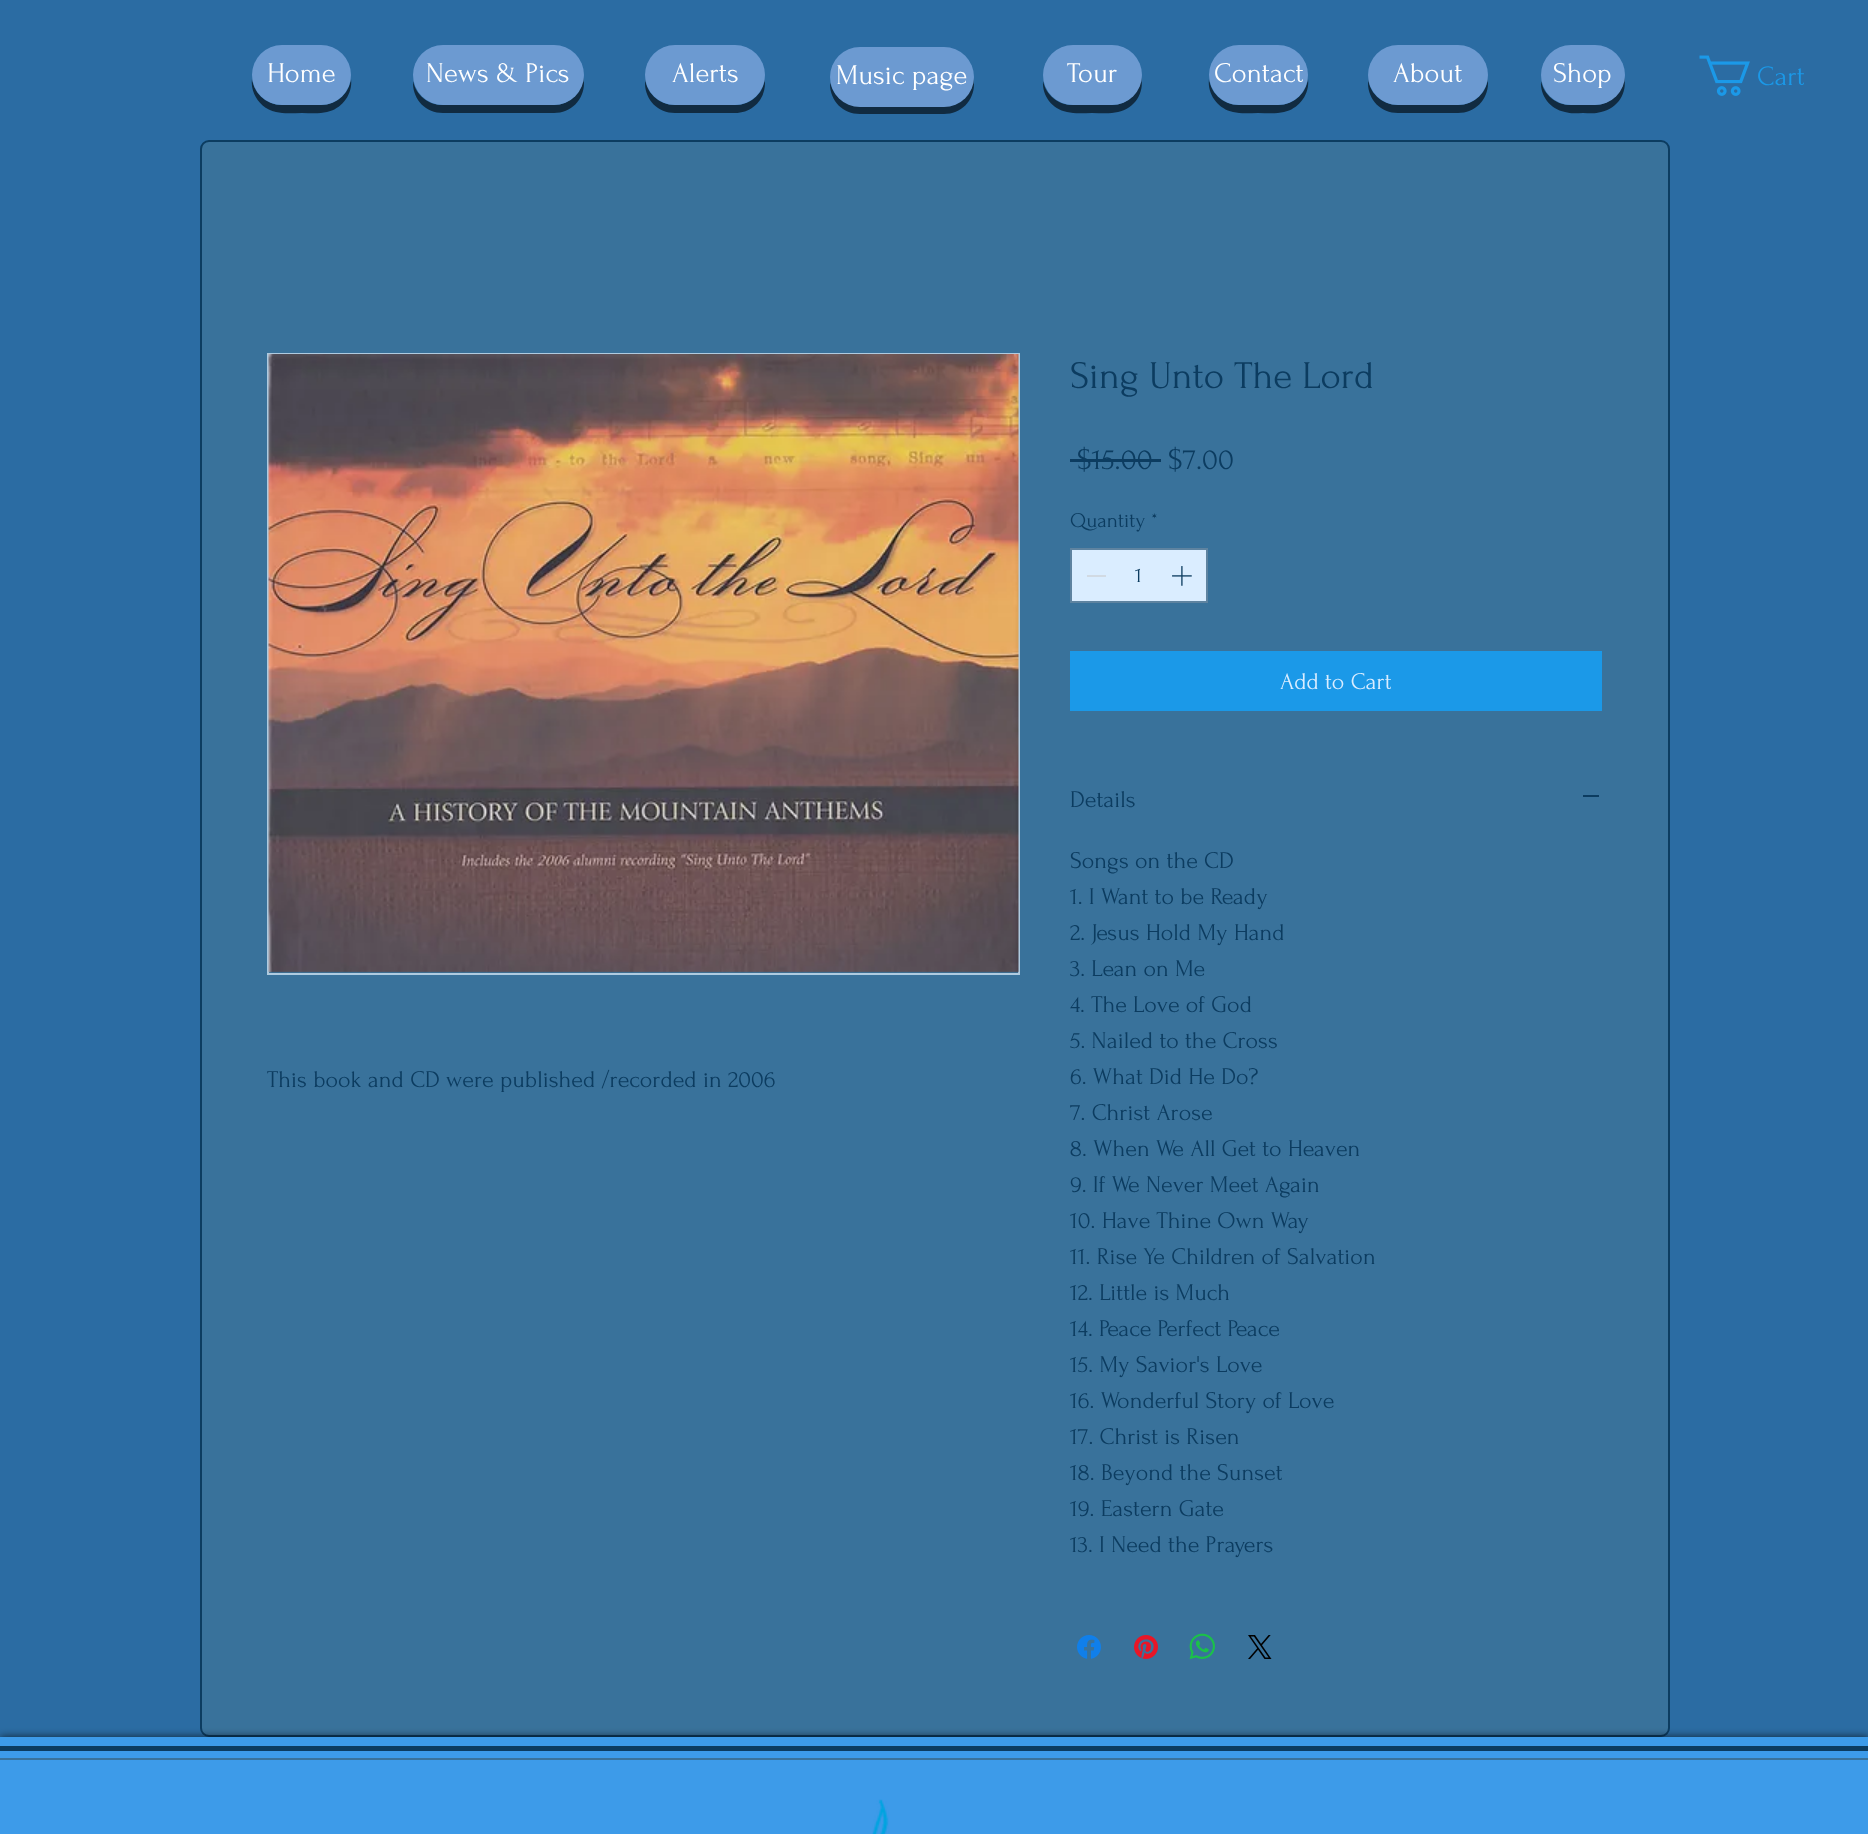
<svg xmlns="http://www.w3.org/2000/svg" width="1868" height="1834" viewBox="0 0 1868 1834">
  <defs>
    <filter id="blur1" x="-50%" y="-200%" width="200%" height="500%"><feGaussianBlur stdDeviation="4"/></filter>
  </defs>
  <rect width="100%" height="100%" fill="#2b6ca3"/>
  <path d="M252 79C250 94 261 109 276 112C284 114 293 113 302 113C310 113 319 114 327 112C342 109 353 94 351 79C349 94 336 105 321 105H282C267 105 254 94 252 79Z" fill="#112b41"/>
  <rect x="252" y="45" width="99" height="60" rx="30" fill="#6c9ad1"/>
  <text x="267" y="82" font-family="Forum" font-size="28.5" fill="#ffffff">Home</text>
  <path d="M413 81V83C413 100 426 113 443 113H554C571 113 584 100 584 83L583 77C582 93 569 105 554 105H442C428 105 416 95 413 81Z" fill="#112b41"/>
  <rect x="413" y="45" width="171" height="60" rx="30" fill="#6c9ad1"/>
  <text x="426" y="82" font-family="Forum" font-size="28.5" fill="#ffffff">News &amp; Pics</text>
  <path d="M645 79V83C645 100 658 113 675 113H735C752 113 765 100 765 83V79C763 94 750 105 735 105H675C660 105 647 94 645 79Z" fill="#112b41"/>
  <rect x="645" y="45" width="120" height="60" rx="30" fill="#6c9ad1"/>
  <text x="672" y="82" font-family="Forum" font-size="28.5" fill="#ffffff">Alerts</text>
  <path d="M830 82V84C830 101 843 114 860 114H944C961 114 974 101 974 84L973 78C973 94 959 106 944 106H860C845 106 833 96 830 82Z" fill="#112b41"/>
  <rect x="830" y="47" width="144" height="60" rx="30" fill="#6c9ad1"/>
  <text x="836" y="84" font-family="Forum" font-size="28.5" fill="#ffffff">Music page</text>
  <path d="M1043 81C1042 96 1052 109 1067 112C1075 114 1084 113 1092 113C1101 113 1110 114 1118 112C1134 109 1145 93 1141 77C1140 93 1127 105 1112 105H1072C1058 105 1046 95 1043 81Z" fill="#112b41"/>
  <rect x="1043" y="45" width="99" height="60" rx="30" fill="#6c9ad1"/>
  <text x="1067" y="82" font-family="Forum" font-size="28.5" fill="#ffffff">Tour</text>
  <path d="M1209 79C1207 94 1218 109 1233 112C1241 114 1250 113 1258 113C1267 113 1276 114 1284 112C1299 109 1310 94 1308 79C1306 94 1293 105 1278 105H1239C1224 105 1211 94 1209 79Z" fill="#112b41"/>
  <rect x="1209" y="45" width="99" height="60" rx="30" fill="#6c9ad1"/>
  <text x="1214" y="82" font-family="Forum" font-size="28.5" fill="#ffffff">Contact</text>
  <path d="M1368 79V83C1368 100 1381 113 1398 113H1458C1475 113 1488 100 1488 83V79C1486 94 1473 105 1458 105H1398C1383 105 1370 94 1368 79Z" fill="#112b41"/>
  <rect x="1368" y="45" width="120" height="60" rx="30" fill="#6c9ad1"/>
  <text x="1393" y="82" font-family="Forum" font-size="28.5" fill="#ffffff">About</text>
  <path d="M1541 81C1540 96 1550 109 1565 112C1571 114 1577 113 1583 113C1589 113 1595 114 1601 112C1617 109 1628 93 1624 77C1623 93 1610 105 1594 105H1570C1556 105 1544 95 1541 81Z" fill="#112b41"/>
  <rect x="1541" y="45" width="84" height="60" rx="30" fill="#6c9ad1"/>
  <text x="1553" y="82" font-family="Forum" font-size="28.5" fill="#ffffff">Shop</text>
  <image x="1699" y="55" width="51" height="41" href="img1.png"/>
  <text x="1757" y="85" font-family="Forum" font-size="28" fill="#1b99e8">Cart</text>
  <rect x="201" y="141" width="1468" height="1595" rx="8" fill="#39729b" stroke="#0c3c60" stroke-width="2"/>
  <rect x="268" y="354" width="751" height="620" fill="none" stroke="#afcbe0" stroke-width="2"/>
  <image x="268" y="354" width="751" height="619" href="img2.png"/>
  <text x="267" y="1087" font-family="Forum" font-size="24" fill="#0c3c60">This book and CD were published /recorded in 2006</text>
  <text x="1070" y="388" font-family="Forum" font-size="39" fill="#0c3c60">Sing Unto The Lord</text>
  <text x="1077" y="469" font-family="Forum" font-size="30" fill="#0c3c60">$15.00</text>
  <rect x="1070" y="459" width="91" height="3" fill="#0c3c60"/>
  <text x="1168" y="469" font-family="Forum" font-size="30" fill="#0c3c60">$7.00</text>
  <text x="1070" y="527" font-family="Forum" font-size="21" fill="#0c3c60">Quantity</text>
  <text x="1151" y="527" font-family="Forum" font-size="21" fill="#0c3c60">*</text>
  <rect x="1071" y="549" width="136" height="53" fill="#daedff" stroke="#5e83a0" stroke-width="2"/>
  <rect x="1087" y="575" width="19" height="2" fill="#d1dae3"/>
  <text x="1135" y="582" font-family="Forum" font-size="21" fill="#0c3c60">1</text>
  <image x="1172" y="566" width="20" height="20" href="img3.png"/>
  <rect x="1070" y="651" width="532" height="60" fill="#1b99e8"/>
  <text x="1280" y="689" font-family="Forum" font-size="24" fill="#daedff">Add to Cart</text>
  <text x="1070" y="807" font-family="Forum" font-size="24" fill="#0c3c60">Details</text>
  <rect x="1583" y="795" width="16" height="2" fill="#0c3c60"/>
  <text x="1070" y="868" font-family="Forum" font-size="24" fill="#0c3c60">Songs on the CD</text>
  <text x="1070" y="904" font-family="Forum" font-size="24" fill="#0c3c60">1. I Want to be Ready</text>
  <text x="1070" y="940" font-family="Forum" font-size="24" fill="#0c3c60">2. Jesus Hold My Hand</text>
  <text x="1070" y="976" font-family="Forum" font-size="24" fill="#0c3c60">3. Lean on Me</text>
  <text x="1070" y="1012" font-family="Forum" font-size="24" fill="#0c3c60">4. The Love of God</text>
  <text x="1070" y="1048" font-family="Forum" font-size="24" fill="#0c3c60">5. Nailed to the Cross</text>
  <text x="1070" y="1084" font-family="Forum" font-size="24" fill="#0c3c60">6. What Did He Do?</text>
  <text x="1070" y="1120" font-family="Forum" font-size="24" fill="#0c3c60">7. Christ Arose</text>
  <text x="1070" y="1156" font-family="Forum" font-size="24" fill="#0c3c60">8. When We All Get to Heaven</text>
  <text x="1070" y="1192" font-family="Forum" font-size="24" fill="#0c3c60">9. If We Never Meet Again</text>
  <text x="1070" y="1228" font-family="Forum" font-size="24" fill="#0c3c60">10. Have Thine Own Way</text>
  <text x="1070" y="1264" font-family="Forum" font-size="24" fill="#0c3c60">11. Rise Ye Children of Salvation</text>
  <text x="1070" y="1300" font-family="Forum" font-size="24" fill="#0c3c60">12. Little is Much</text>
  <text x="1070" y="1336" font-family="Forum" font-size="24" fill="#0c3c60">14. Peace Perfect Peace</text>
  <text x="1070" y="1372" font-family="Forum" font-size="24" fill="#0c3c60">15. My Savior's Love</text>
  <text x="1070" y="1408" font-family="Forum" font-size="24" fill="#0c3c60">16. Wonderful Story of Love</text>
  <text x="1070" y="1444" font-family="Forum" font-size="24" fill="#0c3c60">17. Christ is Risen</text>
  <text x="1070" y="1480" font-family="Forum" font-size="24" fill="#0c3c60">18. Beyond the Sunset</text>
  <text x="1070" y="1516" font-family="Forum" font-size="24" fill="#0c3c60">19. Eastern Gate</text>
  <text x="1070" y="1552" font-family="Forum" font-size="24" fill="#0c3c60">13. I Need the Prayers</text>
  <image x="1077" y="1635" width="24" height="24" href="img4.png"/>
  <image x="1134" y="1635" width="24" height="24" href="img5.png"/>
  <image x="1189" y="1633" width="26" height="26" href="img6.png"/>
  <image x="1248" y="1635" width="24" height="24" href="img7.png"/>
  <rect x="0" y="1737" width="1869" height="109" fill="#000000" fill-opacity="0.7" filter="url(#blur1)"/>
  <rect x="0" y="1737" width="1868" height="97" fill="#3d9be9"/>
  <rect x="0" y="1746" width="1868" height="5" fill="#0c3c60"/>
  <rect x="0" y="1758" width="1868" height="2" fill="#39729b"/>
  <image x="872" y="1799" width="17" height="35" href="img8.png"/>
</svg>
